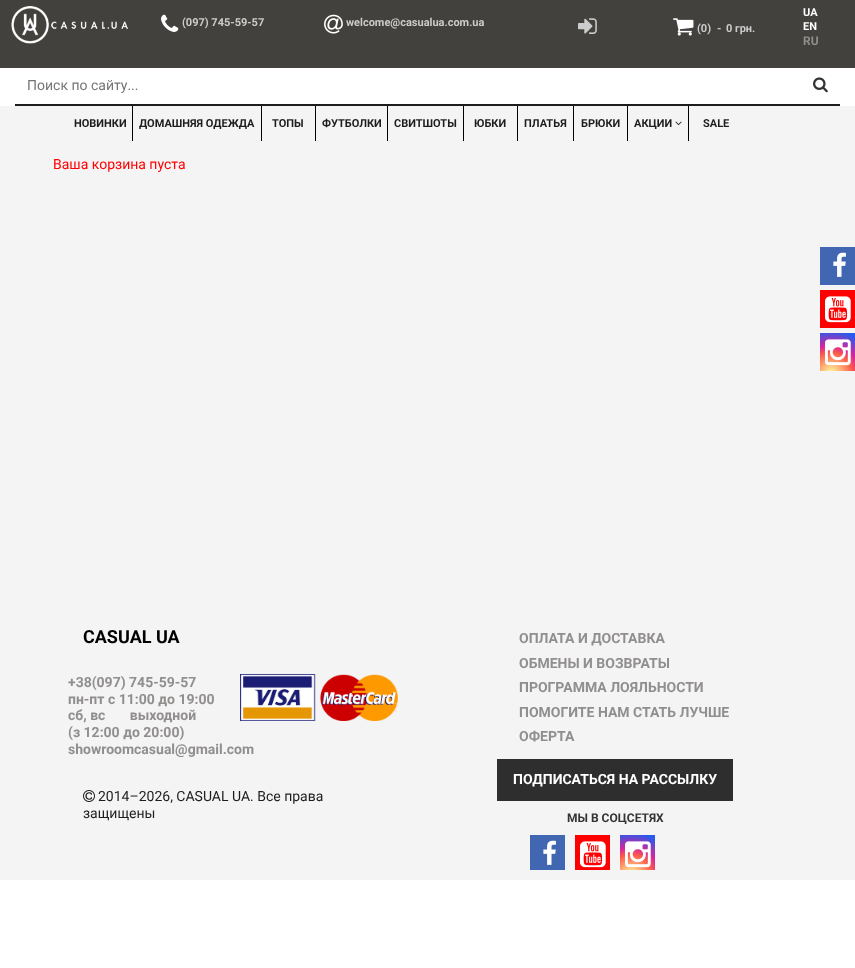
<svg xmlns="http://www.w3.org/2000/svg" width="855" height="968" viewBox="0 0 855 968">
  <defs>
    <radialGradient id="g1" gradientUnits="userSpaceOnUse" cx="831" cy="374" r="48"><stop offset="0" stop-color="#fdf497"/><stop offset="0.05" stop-color="#fdf497"/><stop offset="0.45" stop-color="#fd5949"/><stop offset="0.6" stop-color="#d6249f"/><stop offset="0.9" stop-color="#285aeb"/></radialGradient>
    <radialGradient id="g2" gradientUnits="userSpaceOnUse" cx="631" cy="876" r="48"><stop offset="0" stop-color="#fdf497"/><stop offset="0.05" stop-color="#fdf497"/><stop offset="0.45" stop-color="#fd5949"/><stop offset="0.6" stop-color="#d6249f"/><stop offset="0.9" stop-color="#285aeb"/></radialGradient>
  </defs>
  <rect width="100%" height="100%" fill="#ffffff"/>
  <rect x="0" y="0" width="855" height="68" fill="#42413e"/>
  <image x="11" y="6" width="117" height="38" href="img1.png"/>
  <image x="161" y="14" width="18" height="18" href="img2.png"/>
  <text x="182" y="26" font-family="Roboto" font-size="11" font-weight="bold" fill="#cccccc">(097) 745-59-57</text>
  <image x="324" y="14" width="19" height="20" href="img3.png"/>
  <text x="346" y="26" font-family="Roboto" font-size="11" font-weight="bold" fill="#cccccc">welcome@casualua.com.ua</text>
  <image x="578" y="18" width="19" height="16" href="img4.png"/>
  <image x="673" y="18" width="21" height="18" href="img5.png"/>
  <text x="697" y="32" font-family="Roboto" font-size="11" font-weight="bold" fill="#cccccc">(0)</text>
  <text x="717" y="32" font-family="Roboto" font-size="11" font-weight="bold" fill="#cccccc">-</text>
  <text x="726" y="32" font-family="Roboto" font-size="11" font-weight="bold" fill="#cccccc">0 грн.</text>
  <text x="803" y="16" font-family="Roboto" font-size="11" font-weight="bold" fill="#ffffff">UA</text>
  <text x="803" y="30" font-family="Roboto" font-size="11" font-weight="bold" fill="#ffffff">EN</text>
  <text x="803" y="45" font-family="Roboto" font-size="12" font-weight="bold" fill="#918e8e">RU</text>
  <rect x="15" y="104" width="825" height="2" fill="#1d1d1d"/>
  <text x="27" y="90" font-family="Roboto" font-size="14" fill="#757575">Поиск по сайту...</text>
  <image x="813" y="77" width="15" height="16" href="img6.png"/>
  <rect x="0" y="106" width="855" height="774" fill="#f4f4f4"/>
  <rect x="132" y="106" width="1" height="35" fill="#000000"/>
  <text x="74" y="127" font-family="Roboto" font-size="11" font-weight="bold" fill="#1d1d1d">НОВИНКИ</text>
  <rect x="261" y="106" width="1" height="35" fill="#000000"/>
  <text x="139" y="127" font-family="Roboto" font-size="11" font-weight="bold" fill="#1d1d1d">ДОМАШНЯЯ ОДЕЖДА</text>
  <rect x="315" y="106" width="1" height="35" fill="#000000"/>
  <text x="272" y="127" font-family="Roboto" font-size="11" font-weight="bold" fill="#1d1d1d">ТОПЫ</text>
  <rect x="387" y="106" width="1" height="35" fill="#000000"/>
  <text x="322" y="127" font-family="Roboto" font-size="11" font-weight="bold" fill="#1d1d1d">ФУТБОЛКИ</text>
  <rect x="463" y="106" width="1" height="35" fill="#000000"/>
  <text x="394" y="127" font-family="Roboto" font-size="11" font-weight="bold" fill="#1d1d1d">СВИТШОТЫ</text>
  <rect x="517" y="106" width="1" height="35" fill="#000000"/>
  <text x="474" y="127" font-family="Roboto" font-size="11" font-weight="bold" fill="#1d1d1d">ЮБКИ</text>
  <rect x="573" y="106" width="1" height="35" fill="#000000"/>
  <text x="524" y="127" font-family="Roboto" font-size="11" font-weight="bold" fill="#1d1d1d">ПЛАТЬЯ</text>
  <rect x="627" y="106" width="1" height="35" fill="#000000"/>
  <text x="581" y="127" font-family="Roboto" font-size="11" font-weight="bold" fill="#1d1d1d">БРЮКИ</text>
  <rect x="688" y="106" width="1" height="35" fill="#000000"/>
  <text x="634" y="127" font-family="Roboto" font-size="11" font-weight="bold" fill="#1d1d1d">АКЦИИ</text>
  <image x="675" y="121" width="7" height="5" href="img7.png"/>
  <text x="703" y="127" font-family="Roboto" font-size="11" font-weight="bold" fill="#1d1d1d">SALE</text>
  <text x="53" y="169" font-family="Roboto" font-size="14" fill="#ff0000">Ваша корзина пуста</text>
  <rect x="820" y="247" width="35" height="38" fill="#4267b2"/>
  <image x="833" y="252" width="13" height="25" href="img8.png"/>
  <rect x="820" y="290" width="35" height="38" fill="#ff0000"/>
  <image x="825" y="296" width="26" height="27" href="img9.png"/>
  <rect x="820" y="333" width="35" height="38" fill="url(#g1)"/>
  <image x="825" y="339" width="26" height="27" href="img10.png"/>
  <text x="83" y="643" font-family="Roboto" font-size="18" font-weight="bold" fill="#000000">CASUAL UA</text>
  <text x="68" y="687" font-family="Roboto" font-size="14" font-weight="bold" fill="#918e8e">+38(097) 745-59-57</text>
  <text x="68" y="704" font-family="Roboto" font-size="14" font-weight="bold" fill="#918e8e">пн-пт с 11:00 до 19:00</text>
  <text x="68" y="720" font-family="Roboto" font-size="14" font-weight="bold" fill="#918e8e" xml:space="preserve">сб, вс       выходной</text>
  <text x="68" y="737" font-family="Roboto" font-size="14" font-weight="bold" fill="#918e8e">(з 12:00 до 20:00)</text>
  <text x="68" y="754" font-family="Roboto" font-size="14" font-weight="bold" fill="#918e8e">showroomcasual@gmail.com</text>
  <image x="240" y="674" width="158" height="47" href="img11.png"/>
  <image x="83" y="790" width="12" height="12" href="img12.png"/>
  <text x="98" y="801" font-family="Roboto" font-size="14" fill="#1d1d1d">2014–2026, CASUAL UA. Все права</text>
  <text x="83" y="818" font-family="Roboto" font-size="14" fill="#1d1d1d">защищены</text>
  <text x="519" y="643" font-family="Roboto" font-size="14" font-weight="bold" fill="#918e8e">ОПЛАТА И ДОСТАВКА</text>
  <text x="519" y="668" font-family="Roboto" font-size="14" font-weight="bold" fill="#918e8e">ОБМЕНЫ И ВОЗВРАТЫ</text>
  <text x="519" y="692" font-family="Roboto" font-size="14" font-weight="bold" fill="#918e8e">ПРОГРАММА ЛОЯЛЬНОСТИ</text>
  <text x="519" y="717" font-family="Roboto" font-size="14" font-weight="bold" fill="#918e8e">ПОМОГИТЕ НАМ СТАТЬ ЛУЧШЕ</text>
  <text x="519" y="741" font-family="Roboto" font-size="14" font-weight="bold" fill="#918e8e">ОФЕРТА</text>
  <rect x="497" y="759" width="236" height="42" fill="#2f2e2e"/>
  <text x="513" y="784" font-family="Roboto" font-size="14" font-weight="bold" fill="#ffffff">ПОДПИСАТЬСЯ НА РАССЫЛКУ</text>
  <text x="567" y="822" font-family="Roboto" font-size="12" font-weight="bold" fill="#343434">МЫ В СОЦСЕТЯХ</text>
  <rect x="530" y="835" width="35" height="35" fill="#4267b2"/>
  <image x="543" y="840" width="13" height="25" href="img8.png"/>
  <rect x="575" y="835" width="35" height="35" fill="#ff0000"/>
  <image x="580" y="841" width="26" height="27" href="img9.png"/>
  <rect x="620" y="835" width="35" height="35" fill="url(#g2)"/>
  <image x="625" y="841" width="26" height="27" href="img13.png"/>
</svg>
